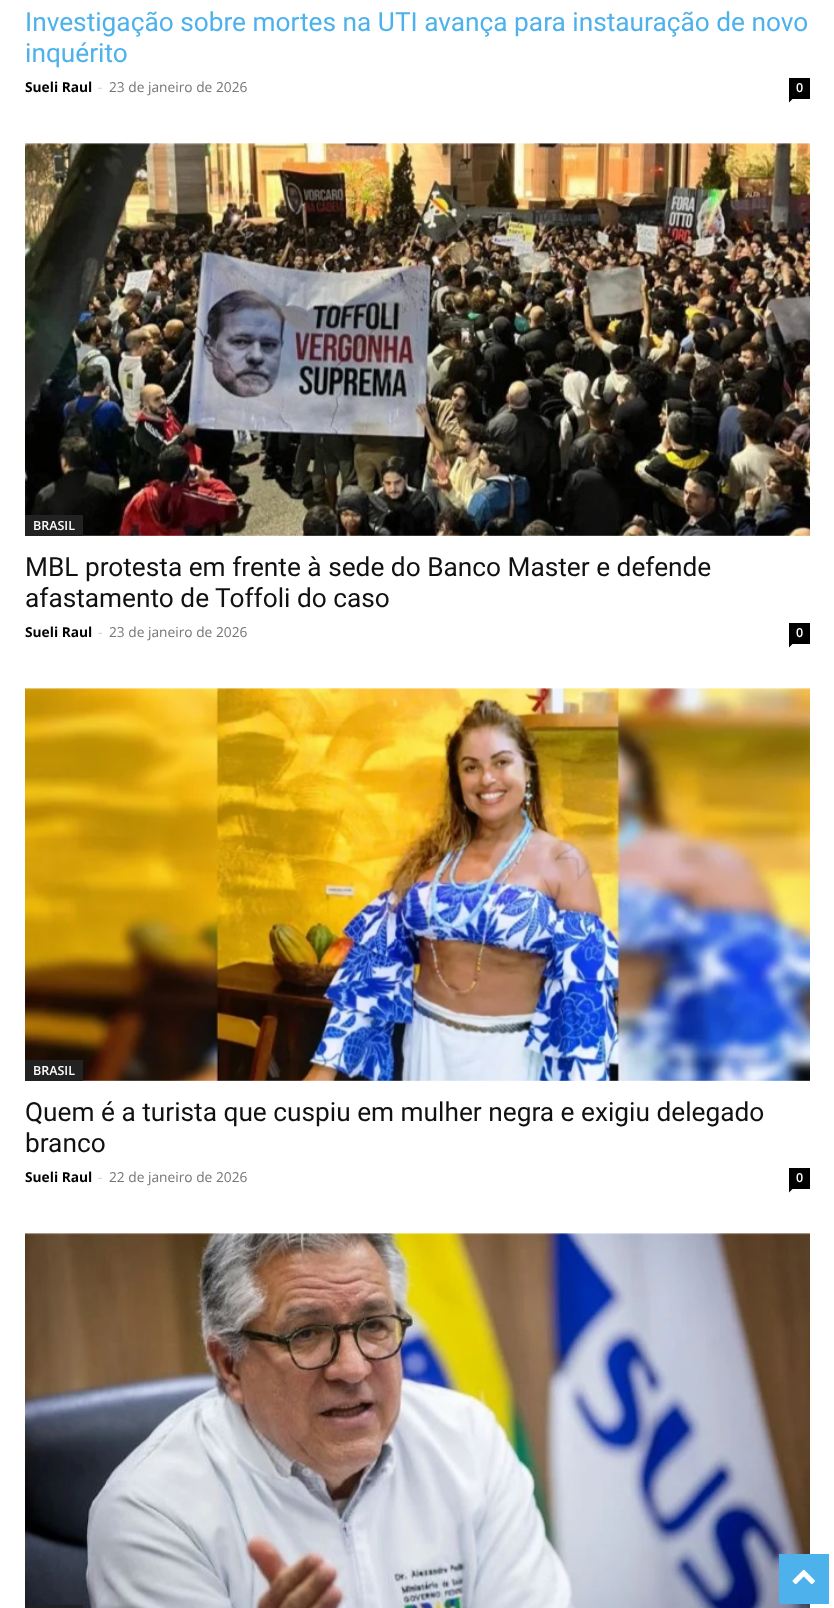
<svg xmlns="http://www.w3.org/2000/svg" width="834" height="1608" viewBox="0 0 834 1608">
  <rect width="100%" height="100%" fill="#ffffff"/>
  <text x="25" y="31" font-family="Roboto" font-size="26.25" fill="#4db2ec">Investigação sobre mortes na UTI avança para instauração de novo</text>
  <text x="25" y="62" font-family="Roboto" font-size="26.25" fill="#4db2ec">inquérito</text>
  <text x="25" y="92" font-family="Open Sans" font-size="13.75" font-weight="bold" fill="#000000">Sueli Raul</text>
  <text x="98" y="92" font-family="Open Sans" font-size="13.75" fill="#cccccc">-</text>
  <text x="109" y="92" font-family="Open Sans" font-size="13.75" fill="#767676">23 de janeiro de 2026</text>
  <rect x="789" y="78" width="21" height="21" fill="#000000"/>
  <text x="796" y="92" font-family="Open Sans" font-size="12.5" font-weight="600" fill="#ffffff">0</text>
  <path d="M789 99H792.5L789 102.5Z" fill="#000000"/>
  <image x="25" y="143" width="785" height="393" href="img1.png"/>
  <rect x="25" y="515" width="58" height="21" fill="#222222"/>
  <text x="33" y="530" font-family="Open Sans" font-size="12.5" font-weight="600" fill="#ffffff">BRASIL</text>
  <text x="25" y="576" font-family="Roboto" font-size="26.25" fill="#111111">MBL protesta em frente à sede do Banco Master e defende</text>
  <text x="25" y="607" font-family="Roboto" font-size="26.25" fill="#111111">afastamento de Toffoli do caso</text>
  <text x="25" y="637" font-family="Open Sans" font-size="13.75" font-weight="bold" fill="#000000">Sueli Raul</text>
  <text x="98" y="637" font-family="Open Sans" font-size="13.75" fill="#cccccc">-</text>
  <text x="109" y="637" font-family="Open Sans" font-size="13.75" fill="#767676">23 de janeiro de 2026</text>
  <rect x="789" y="623" width="21" height="21" fill="#000000"/>
  <text x="796" y="637" font-family="Open Sans" font-size="12.5" font-weight="600" fill="#ffffff">0</text>
  <path d="M789 644H792.5L789 647.5Z" fill="#000000"/>
  <image x="25" y="688" width="785" height="393" href="img2.png"/>
  <rect x="25" y="1060" width="58" height="21" fill="#222222"/>
  <text x="33" y="1075" font-family="Open Sans" font-size="12.5" font-weight="600" fill="#ffffff">BRASIL</text>
  <text x="25" y="1121" font-family="Roboto" font-size="26.25" fill="#111111">Quem é a turista que cuspiu em mulher negra e exigiu delegado</text>
  <text x="25" y="1152" font-family="Roboto" font-size="26.25" fill="#111111">branco</text>
  <text x="25" y="1182" font-family="Open Sans" font-size="13.75" font-weight="bold" fill="#000000">Sueli Raul</text>
  <text x="98" y="1182" font-family="Open Sans" font-size="13.75" fill="#cccccc">-</text>
  <text x="109" y="1182" font-family="Open Sans" font-size="13.75" fill="#767676">22 de janeiro de 2026</text>
  <rect x="789" y="1168" width="21" height="21" fill="#000000"/>
  <text x="796" y="1182" font-family="Open Sans" font-size="12.5" font-weight="600" fill="#ffffff">0</text>
  <path d="M789 1189H792.5L789 1192.5Z" fill="#000000"/>
  <image x="25" y="1233" width="785" height="375" href="img3.png"/>
  <rect x="25" y="1605" width="58" height="3" fill="#222222"/>
  <rect x="779" y="1554" width="50" height="50" fill="#4db2ec"/>
  <image x="792" y="1569" width="23" height="16" href="img4.png"/>
</svg>
